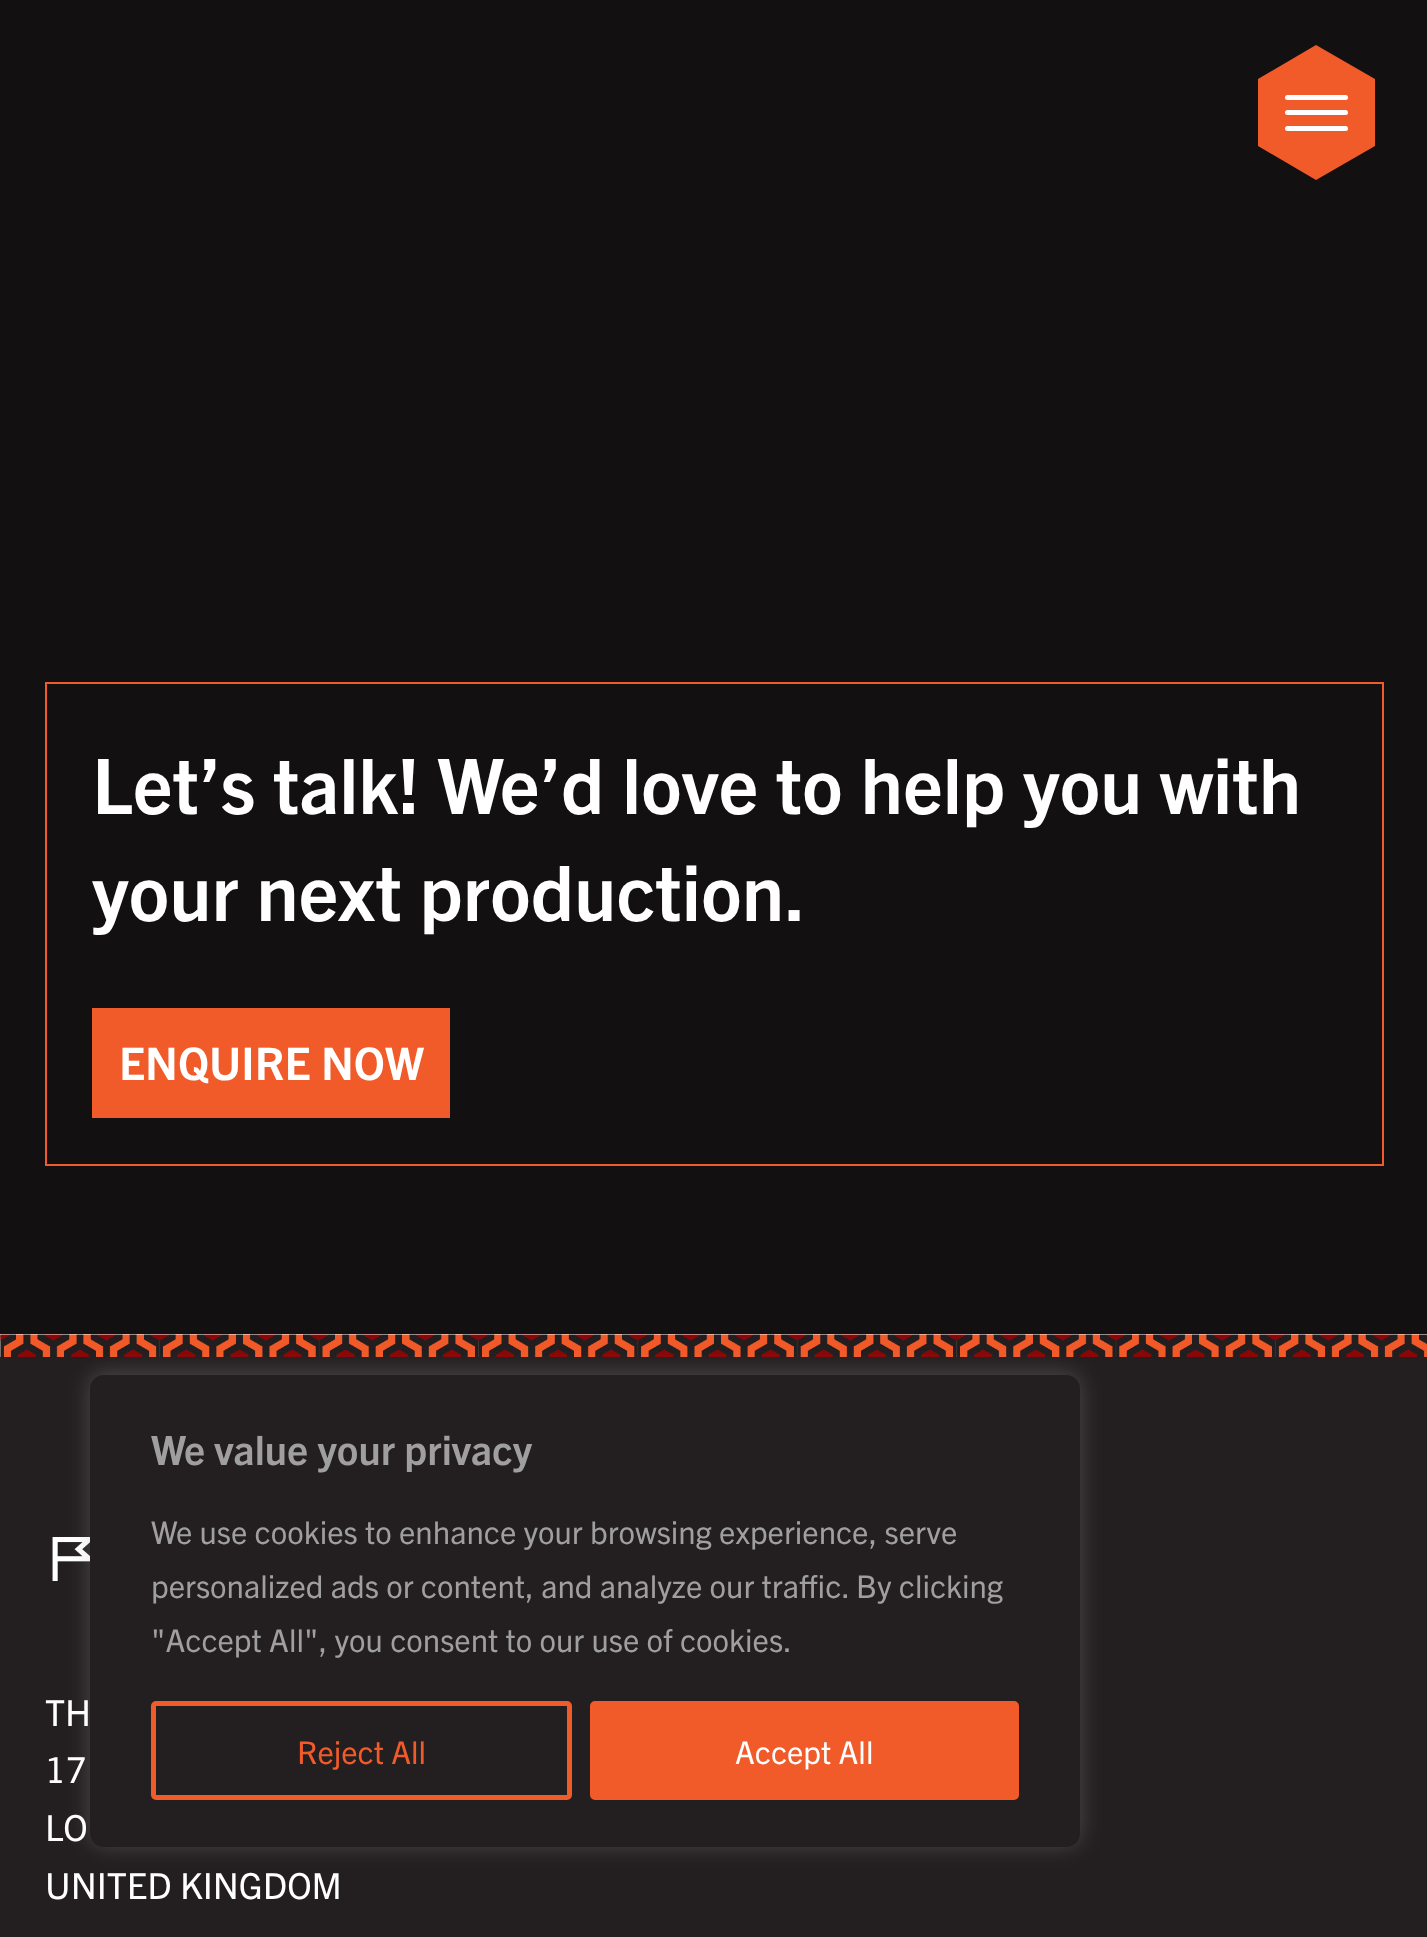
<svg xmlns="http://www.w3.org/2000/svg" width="1427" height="1937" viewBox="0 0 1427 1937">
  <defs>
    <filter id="blur1" x="-50%" y="-200%" width="200%" height="500%"><feGaussianBlur stdDeviation="11"/></filter>
  </defs>
  <rect width="100%" height="100%" fill="#ffffff"/>
  <rect x="0" y="0" width="1427" height="1334" fill="#121010"/>
  <path d="M1258 79V146L1316 180L1375 146V79L1316 45Z" fill="#f15a29"/>
  <rect x="1285" y="95" width="63" height="5" rx="2.5" fill="#ffffff"/>
  <rect x="1285" y="110" width="63" height="5" rx="2.5" fill="#ffffff"/>
  <rect x="1285" y="126" width="63" height="5" rx="2.5" fill="#ffffff"/>
  <rect x="46" y="683" width="1337" height="482" fill="none" stroke="#f15a29" stroke-width="2"/>
  <text x="92" y="814" font-family="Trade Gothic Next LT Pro" font-size="76.5" font-weight="bold" fill="#ffffff">Let’s talk! We’d love to help you with</text>
  <text x="92" y="921" font-family="Trade Gothic Next LT Pro" font-size="76.5" font-weight="bold" fill="#ffffff">your next production.</text>
  <rect x="92" y="1008" width="358" height="110" fill="#f15a29"/>
  <text x="119" y="1080" font-family="Trade Gothic Next LT Pro" font-size="45" font-weight="bold" fill="#ffffff">ENQUIRE NOW</text>
  <image x="0" y="1334" width="1427" height="23" href="img1.png"/>
  <rect x="0" y="1357" width="1427" height="580" fill="#231f20"/>
  <image x="52" y="1537" width="38" height="44" href="img2.png"/>
  <rect x="90" y="1373" width="990" height="472" rx="14" fill="#acabab" fill-opacity="0.3" filter="url(#blur1)"/>
  <rect x="91" y="1376" width="988" height="470" rx="13" fill="#231f20" stroke="#231f20" stroke-width="2"/>
  <text x="151" y="1465" font-family="Trade Gothic Next LT Pro" font-size="40.5" font-weight="bold" fill="#a09f9f">We value your privacy</text>
  <text x="151" y="1544" font-family="Trade Gothic Next LT Pro" font-size="31.5" fill="#a09f9f">We use cookies to enhance your browsing experience, serve</text>
  <text x="151" y="1598" font-family="Trade Gothic Next LT Pro" font-size="31.5" fill="#a09f9f">personalized ads or content, and analyze our traffic. By clicking</text>
  <text x="151" y="1652" font-family="Trade Gothic Next LT Pro" font-size="31.5" fill="#a09f9f">"Accept All", you consent to our use of cookies.</text>
  <rect x="153.5" y="1703.5" width="416" height="94" rx="2.5" fill="none" stroke="#f15a29" stroke-width="5"/>
  <text x="297" y="1764" font-family="Trade Gothic Next LT Pro" font-size="31.5" fill="#f15a29">Reject All</text>
  <rect x="592.5" y="1703.5" width="424" height="94" rx="2.5" fill="#f15a29" stroke="#f15a29" stroke-width="5"/>
  <text x="735" y="1764" font-family="Trade Gothic Next LT Pro" font-size="31.5" fill="#ffffff">Accept All</text>
  <text x="45" y="1726" font-family="Trade Gothic Next LT Pro" font-size="36" fill="#ffffff">TH</text>
  <text x="45" y="1783" font-family="Trade Gothic Next LT Pro" font-size="36" fill="#ffffff">17</text>
  <text x="45" y="1841" font-family="Trade Gothic Next LT Pro" font-size="36" fill="#ffffff">LO</text>
  <text x="45" y="1899" font-family="Trade Gothic Next LT Pro" font-size="36" fill="#ffffff">UNITED KINGDOM</text>
</svg>
